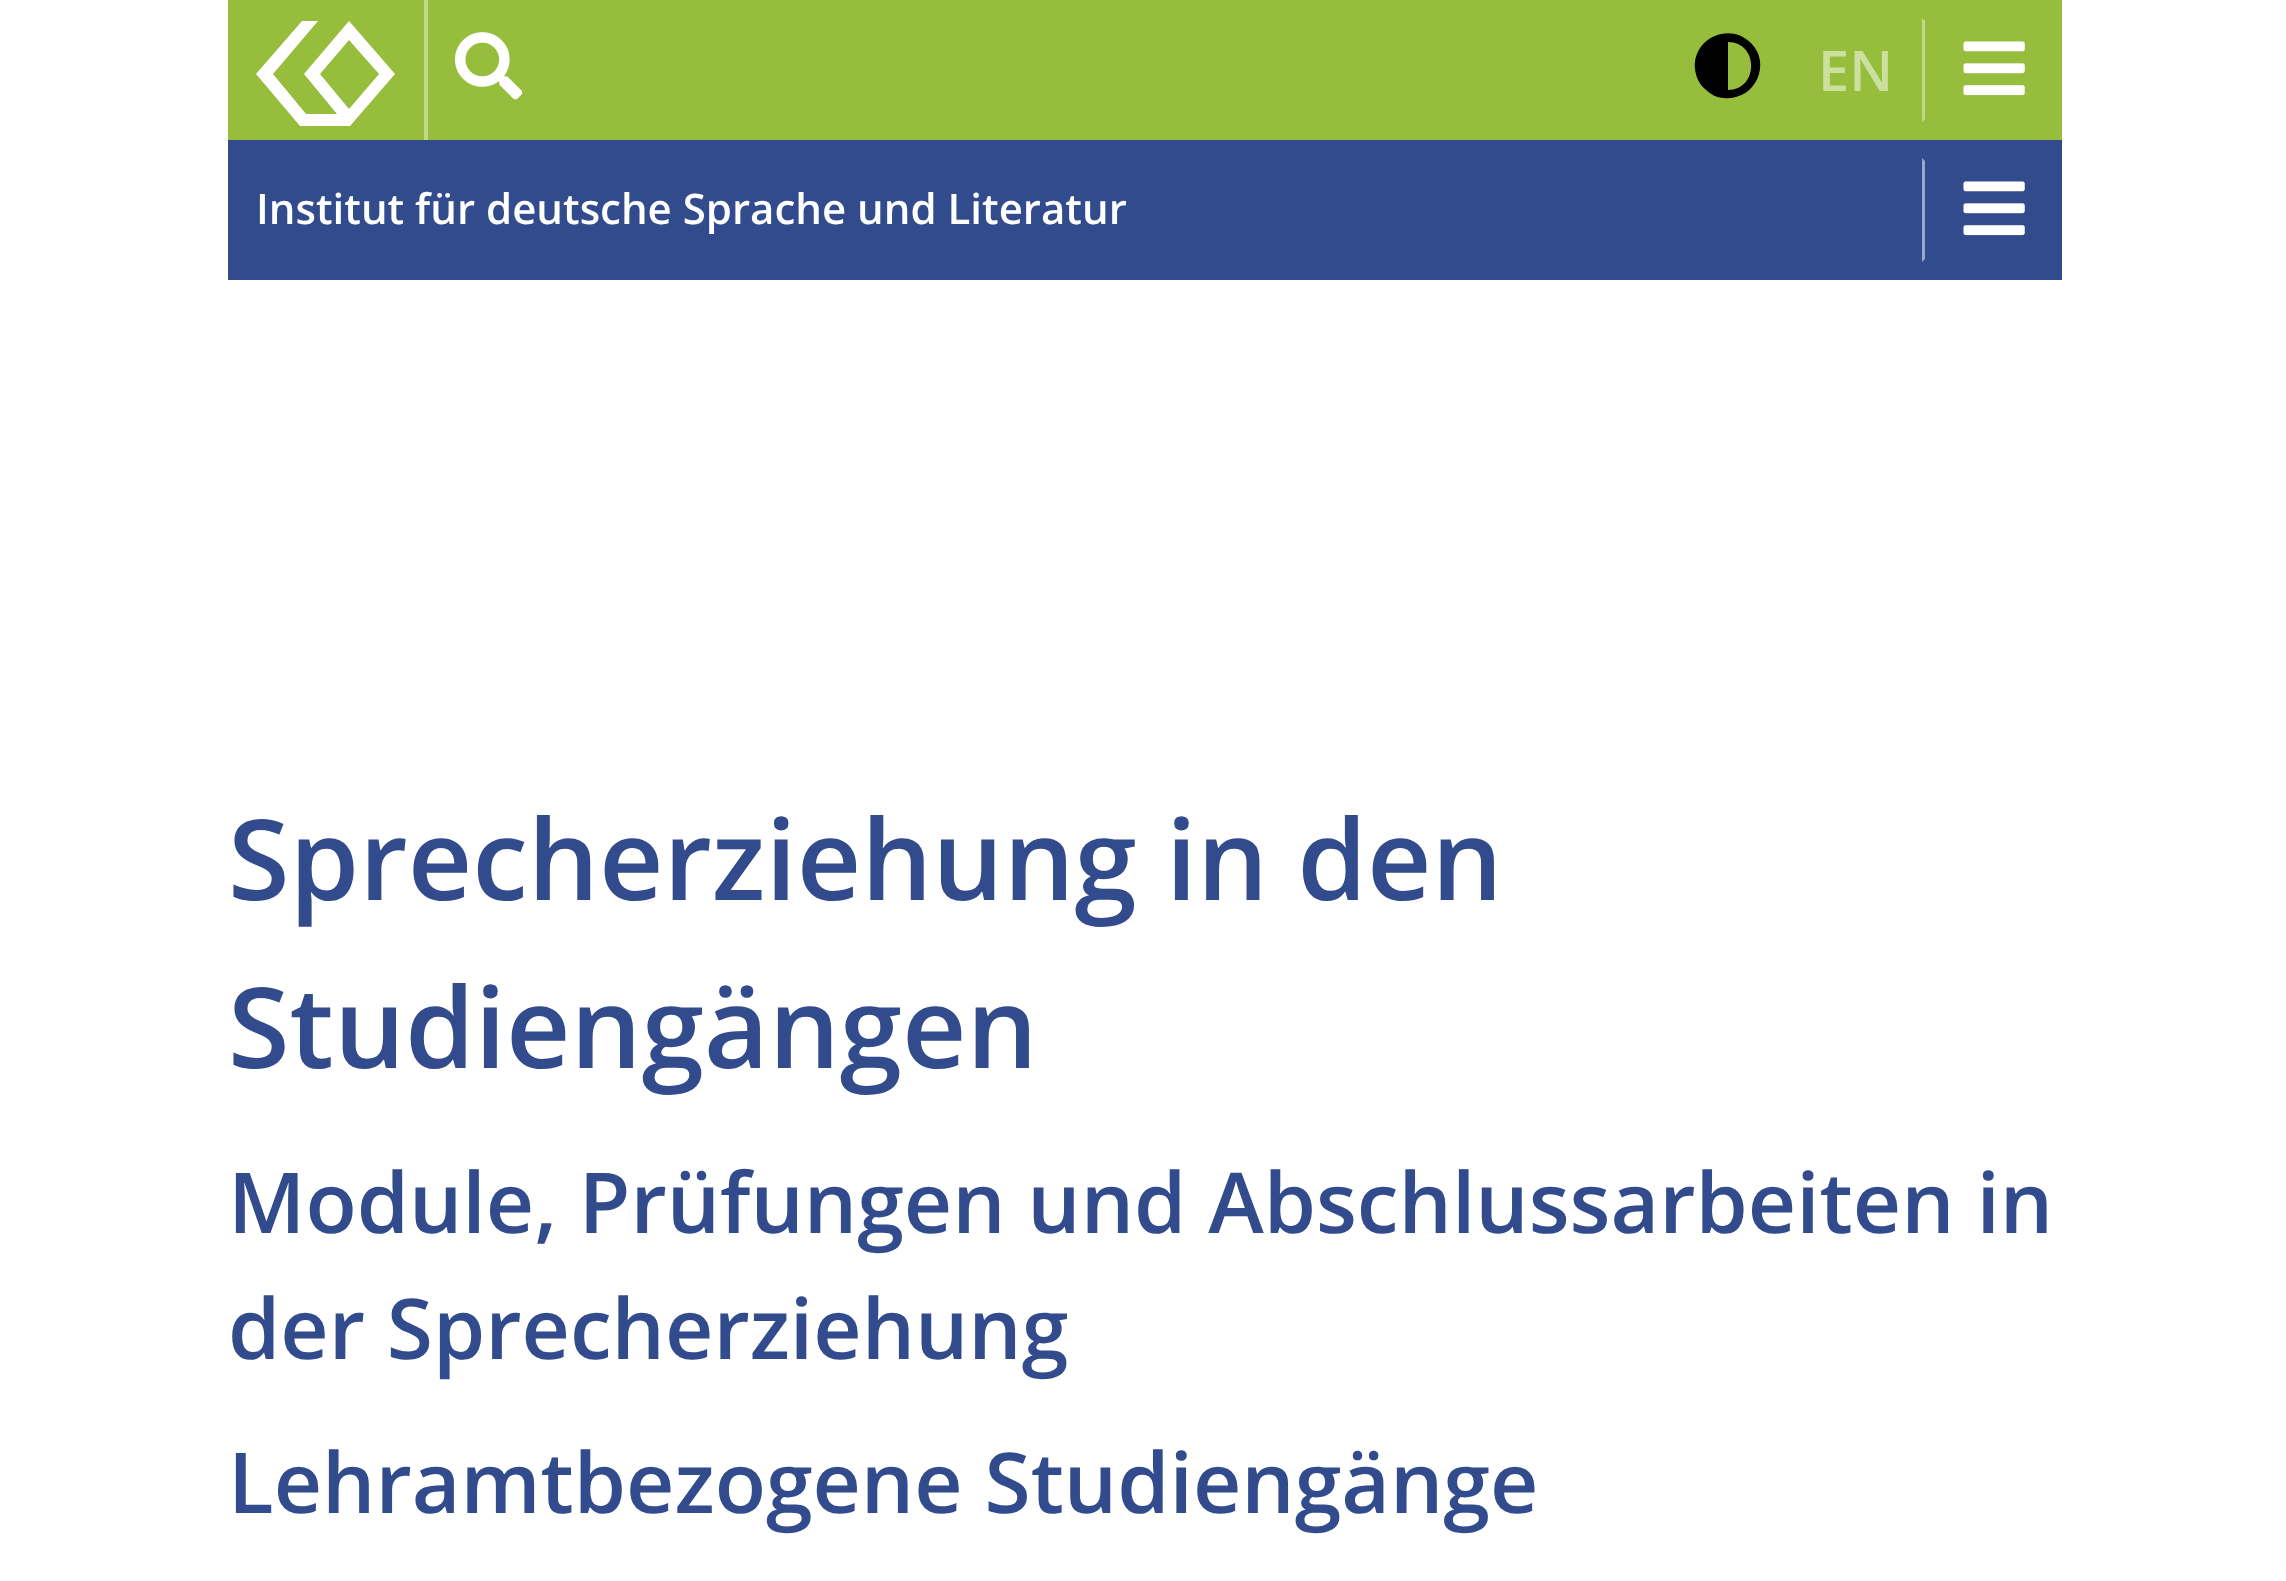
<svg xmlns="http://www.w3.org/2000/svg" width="2286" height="1581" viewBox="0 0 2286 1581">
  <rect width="100%" height="100%" fill="#ffffff"/>
  <rect x="228" y="0" width="1834" height="140" fill="#96be3c"/>
  <rect x="424" y="0" width="4" height="140" fill="#c0d88a"/>
  <path d="M350 126H300L256 74L302 21H318L273 74L306 114H337L304 74L349 21L395 74ZM320 74L349 109L379 74L349 40Z" fill="#ffffff"/>
  <image x="455" y="32" width="68" height="68" href="img1.png"/>
  <path d="M1705 89C1699 84 1696 77 1695 69C1692 39 1729 21 1751 43C1772 64 1755 101 1724 98C1717 98 1710 94 1705 89ZM1728 90C1759 90 1759 42 1728 42Z" fill="#000000"/>
  <text x="1818" y="91" font-family="Open Sans" font-size="56" font-weight="600" fill="#cbdf9e">EN</text>
  <path d="M1922 122V18L1925 21V119Z" fill="#c0d88a"/>
  <image x="1963" y="41" width="62" height="55" href="img2.png"/>
  <rect x="228" y="140" width="1834" height="140" fill="#324b8c"/>
  <text x="256" y="224" font-family="Open Sans" font-size="42" font-weight="600" fill="#ffffff">Institut für deutsche Sprache und Literatur</text>
  <path d="M1922 262V158L1925 161V259Z" fill="#9ba7c6"/>
  <image x="1963" y="181" width="62" height="55" href="img3.png"/>
  <text x="228" y="900" font-family="Open Sans" font-size="112" font-weight="600" fill="#324b8c">Sprecherziehung in den</text>
  <text x="228" y="1068" font-family="Open Sans" font-size="112" font-weight="600" fill="#324b8c">Studiengängen</text>
  <text x="228" y="1233" font-family="Open Sans" font-size="84" font-weight="600" fill="#324b8c">Module, Prüfungen und Abschlussarbeiten in</text>
  <text x="228" y="1359" font-family="Open Sans" font-size="84" font-weight="600" fill="#324b8c">der Sprecherziehung</text>
  <text x="228" y="1513" font-family="Open Sans" font-size="84" font-weight="600" fill="#324b8c">Lehramtbezogene Studiengänge</text>
</svg>
